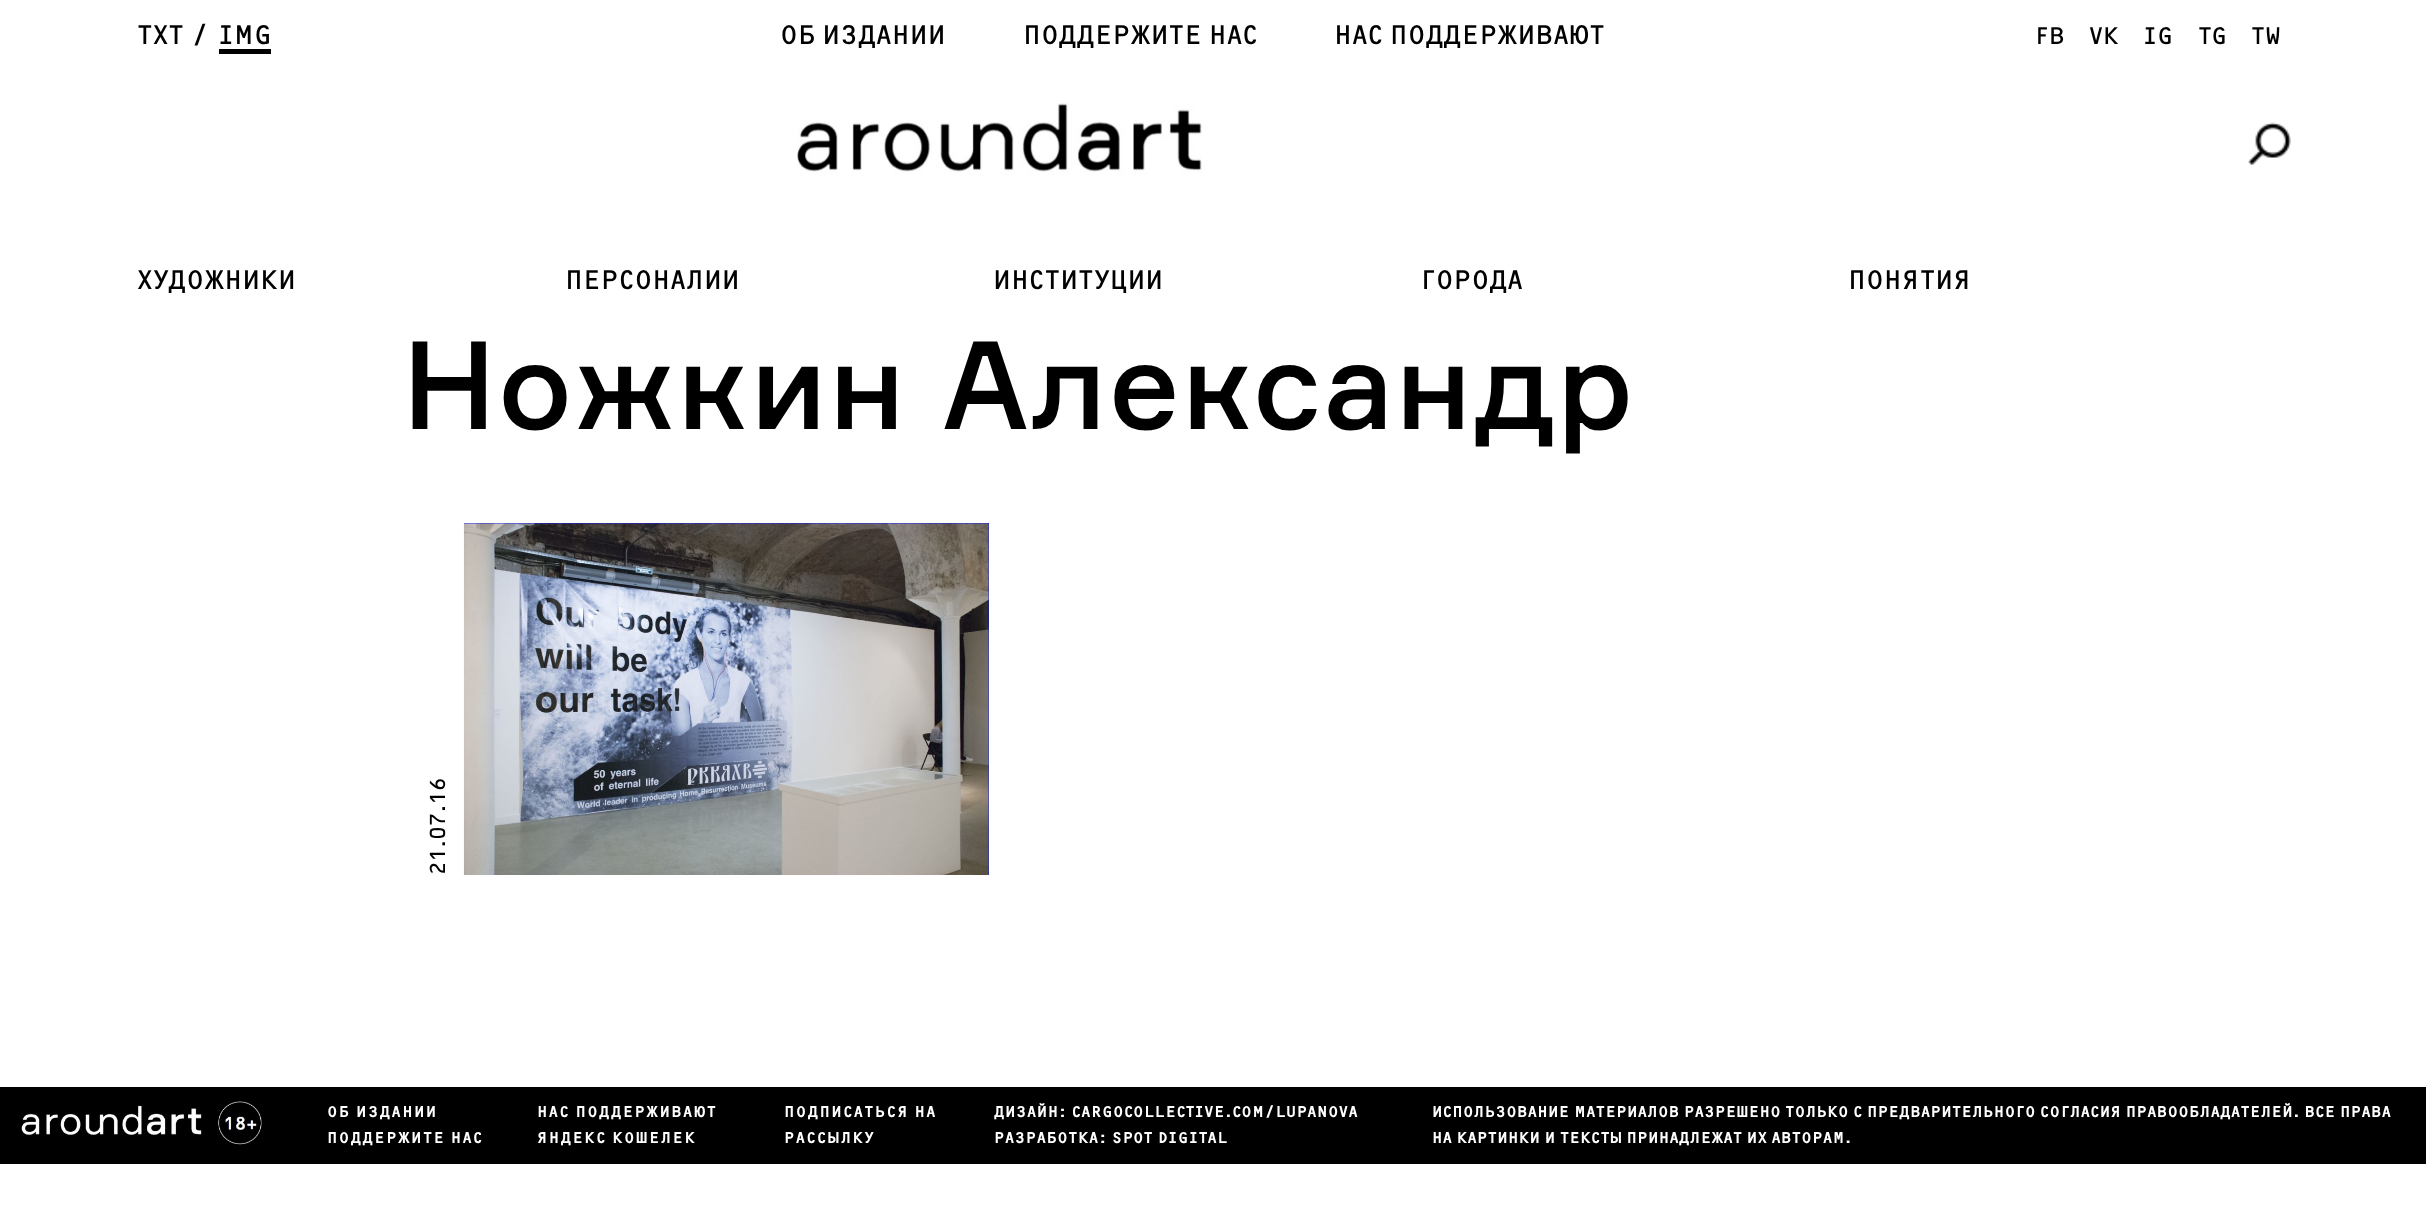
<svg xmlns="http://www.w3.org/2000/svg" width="2426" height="1208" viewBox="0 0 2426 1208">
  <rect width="100%" height="100%" fill="#ffffff"/>
  <text x="137" y="44" font-family="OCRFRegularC" font-size="28" fill="#000000">TXT</text>
  <text x="191" y="44" font-family="OCRFRegularC" font-size="28" fill="#000000">/</text>
  <rect x="219" y="49" width="52" height="5" fill="#000000"/>
  <text x="218" y="44" font-family="OCRFRegularC" font-size="28" fill="#000000">IMG</text>
  <text x="780" y="44" font-family="OCRFRegularC" font-size="28" fill="#000000">ОБ ИЗДАНИИ</text>
  <text x="1023" y="44" font-family="OCRFRegularC" font-size="28" fill="#000000">ПОДДЕРЖИТЕ НАС</text>
  <text x="1334" y="44" font-family="OCRFRegularC" font-size="28" fill="#000000">НАС ПОДДЕРЖИВАЮТ</text>
  <text x="2035" y="44" font-family="OCRFRegularC" font-size="25" fill="#000000">FB</text>
  <text x="2089" y="44" font-family="OCRFRegularC" font-size="25" fill="#000000">VK</text>
  <text x="2143" y="44" font-family="OCRFRegularC" font-size="25" fill="#000000">IG</text>
  <text x="2198" y="44" font-family="OCRFRegularC" font-size="25" fill="#000000">TG</text>
  <text x="2251" y="44" font-family="OCRFRegularC" font-size="25" fill="#000000">TW</text>
  <image x="797" y="103" width="405" height="72" href="img1.png"/>
  <image x="2248" y="122" width="43" height="43" href="img2.png"/>
  <text x="137" y="289" font-family="OCRFRegularC" font-size="28" fill="#000000">ХУДОЖНИКИ</text>
  <text x="565" y="289" font-family="OCRFRegularC" font-size="28" fill="#000000">ПЕРСОНАЛИИ</text>
  <text x="993" y="289" font-family="OCRFRegularC" font-size="28" fill="#000000">ИНСТИТУЦИИ</text>
  <text x="1420" y="289" font-family="OCRFRegularC" font-size="28" fill="#000000">ГОРОДА</text>
  <text x="1848" y="289" font-family="OCRFRegularC" font-size="28" fill="#000000">ПОНЯТИЯ</text>
  <text x="402" y="429" font-family="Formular" font-size="122.5" font-weight="500" letter-spacing="1.4" fill="#000000">Ножкин Александр</text>
  <rect x="465" y="524" width="523" height="350" fill="none" stroke="#0d20ff" stroke-width="2"/>
  <text x="445" y="875" transform="rotate(-90 445 875)" font-family="OCRFRegularC" font-size="21" fill="#000000">21.07.16</text>
  <image x="463" y="523" width="526" height="352" href="img3.png"/>
  <rect x="0" y="1087" width="2426" height="77" fill="#000000"/>
  <image x="21" y="1101" width="241" height="44" href="img4.png"/>
  <text x="327" y="1117" font-family="OCRFRegularC" font-size="15.75" font-weight="bold" letter-spacing="1.75" fill="#ffffff">ОБ ИЗДАНИИ</text>
  <text x="327" y="1143" font-family="OCRFRegularC" font-size="15.75" font-weight="bold" letter-spacing="1.75" fill="#ffffff">ПОДДЕРЖИТЕ НАС</text>
  <text x="537" y="1117" font-family="OCRFRegularC" font-size="15.75" font-weight="bold" letter-spacing="1.75" fill="#ffffff">НАС ПОДДЕРЖИВАЮТ</text>
  <text x="537" y="1143" font-family="OCRFRegularC" font-size="15.75" font-weight="bold" letter-spacing="1.75" fill="#ffffff">ЯНДЕКС КОШЕЛЕК</text>
  <text x="784" y="1117" font-family="OCRFRegularC" font-size="15.75" font-weight="bold" letter-spacing="1.75" fill="#ffffff">ПОДПИСАТЬСЯ НА</text>
  <text x="784" y="1143" font-family="OCRFRegularC" font-size="15.75" font-weight="bold" letter-spacing="1.75" fill="#ffffff">РАССЫЛКУ</text>
  <text x="994" y="1117" font-family="OCRFRegularC" font-size="15.75" font-weight="bold" letter-spacing="0.9" fill="#ffffff">ДИЗАЙН: CARGOCOLLECTIVE.COM/LUPANOVA</text>
  <text x="994" y="1143" font-family="OCRFRegularC" font-size="15.75" font-weight="bold" letter-spacing="0.9" fill="#ffffff">РАЗРАБОТКА: SPOT DIGITAL</text>
  <text x="1432" y="1117" font-family="OCRFRegularC" font-size="15.75" font-weight="bold" letter-spacing="0.7" fill="#ffffff">ИСПОЛЬЗОВАНИЕ МАТЕРИАЛОВ РАЗРЕШЕНО ТОЛЬКО С ПРЕДВАРИТЕЛЬНОГО СОГЛАСИЯ ПРАВООБЛАДАТЕЛЕЙ. ВСЕ ПРАВА</text>
  <text x="1432" y="1143" font-family="OCRFRegularC" font-size="15.75" font-weight="bold" letter-spacing="0.7" fill="#ffffff">НА КАРТИНКИ И ТЕКСТЫ ПРИНАДЛЕЖАТ ИХ АВТОРАМ.</text>
</svg>
